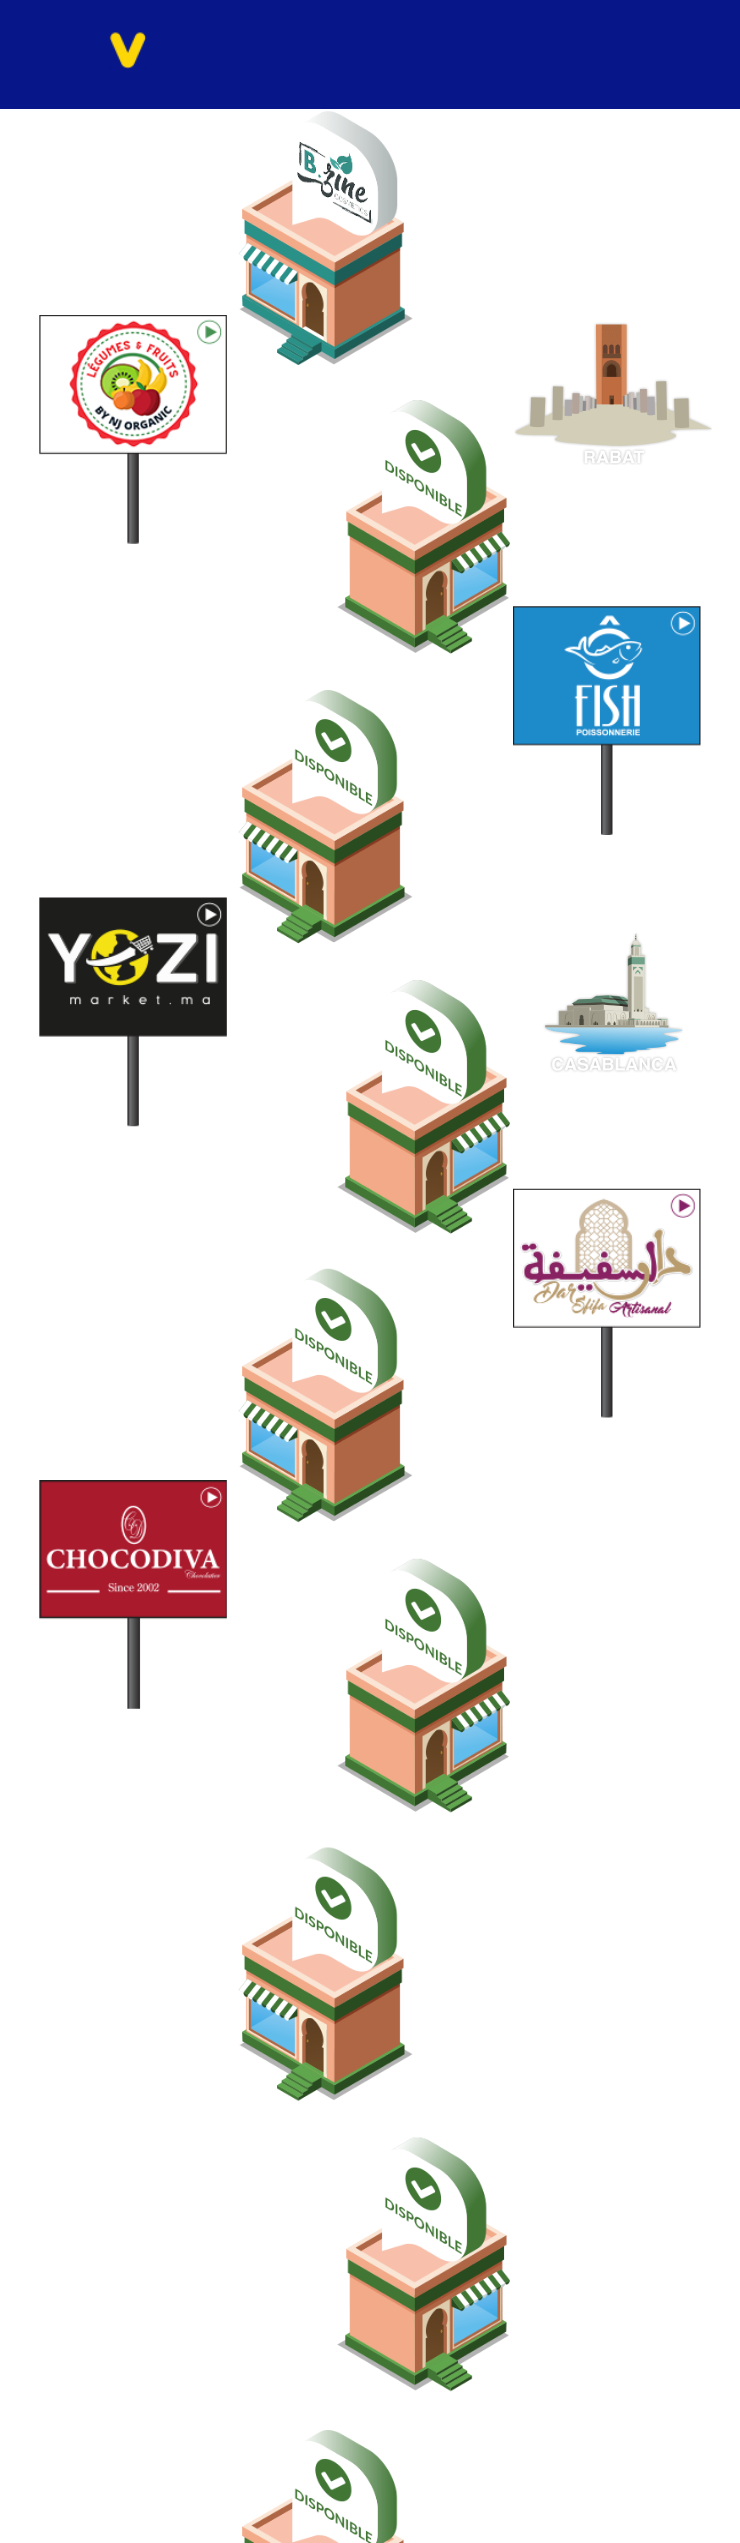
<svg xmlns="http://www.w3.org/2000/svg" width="740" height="2543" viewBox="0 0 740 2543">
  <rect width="100%" height="100%" fill="#ffffff"/>
  <rect x="0" y="0" width="740" height="109" fill="#071689"/>
  <image x="109" y="32" width="38" height="37" href="img1.png"/>
  <image x="238" y="111" width="175" height="254" href="img2.png"/>
  <image x="337" y="400" width="173" height="254" href="img3.png"/>
  <image x="238" y="690" width="175" height="254" href="img4.png"/>
  <image x="337" y="980" width="173" height="254" href="img3.png"/>
  <image x="238" y="1268" width="175" height="255" href="img5.png"/>
  <image x="337" y="1558" width="173" height="255" href="img6.png"/>
  <image x="238" y="1847" width="175" height="255" href="img7.png"/>
  <image x="337" y="2137" width="173" height="255" href="img8.png"/>
  <image x="242" y="2430" width="162" height="113" href="img9.png"/>
  <image x="39" y="315" width="188" height="229" href="img10.png"/>
  <image x="513" y="606" width="188" height="229" href="img11.png"/>
  <image x="39" y="897" width="188" height="230" href="img12.png"/>
  <image x="513" y="1188" width="188" height="230" href="img13.png"/>
  <image x="39" y="1480" width="188" height="229" href="img14.png"/>
  <image x="514" y="322" width="198" height="143" href="img15.png"/>
  <image x="543" y="932" width="140" height="141" href="img16.png"/>
</svg>
